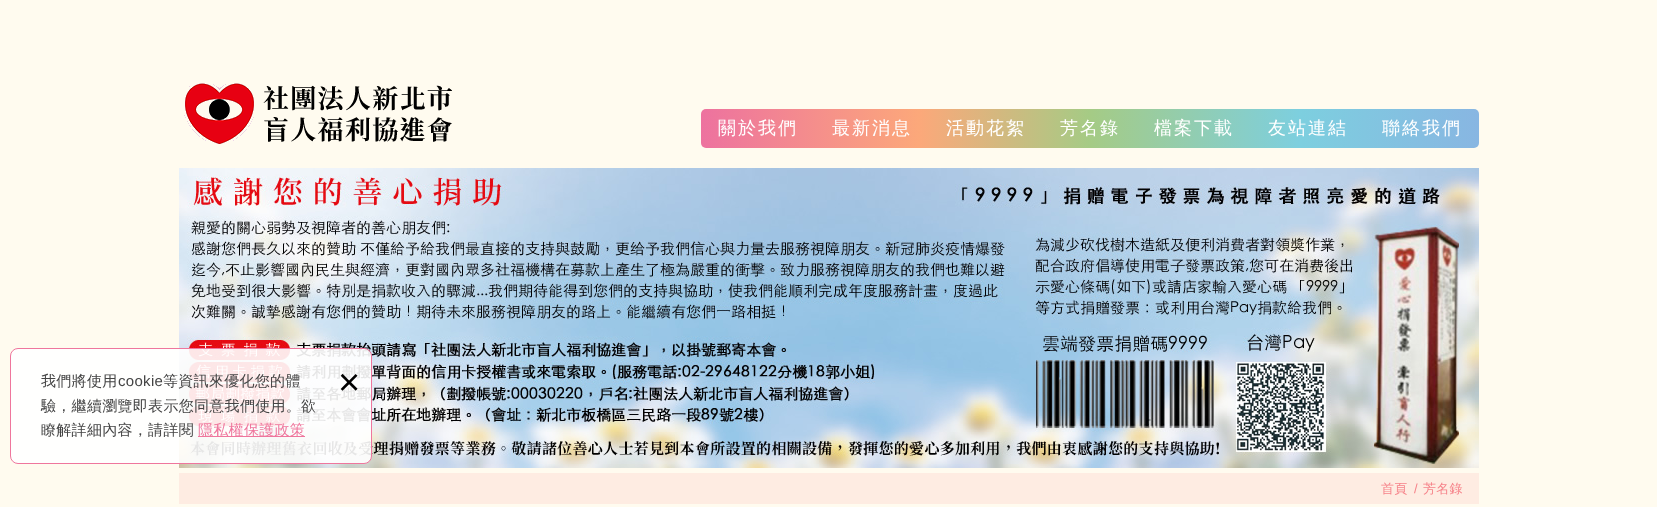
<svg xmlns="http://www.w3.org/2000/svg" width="1657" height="507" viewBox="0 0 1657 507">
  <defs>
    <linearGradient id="g1" gradientUnits="userSpaceOnUse" x1="701" y1="129" x2="1479" y2="128"><stop offset="0" stop-color="#ed729f"/><stop offset="0.28" stop-color="#fca87a"/><stop offset="0.5" stop-color="#a5cb85"/><stop offset="0.77" stop-color="#7dcfdf"/><stop offset="1" stop-color="#88b6e2"/></linearGradient>
  </defs>
  <rect width="100%" height="100%" fill="#fffbef"/>
  <image x="184" y="83" width="268" height="61" href="img1.png"/>
  <rect x="701" y="109" width="778" height="39" rx="5" fill="url(#g1)"/>
  <text x="718" y="134" font-family="WenQuanYi Zen Hei" font-size="18" font-weight="500" letter-spacing="2" fill="#ffffff">關於我們</text>
  <text x="832" y="134" font-family="WenQuanYi Zen Hei" font-size="18" font-weight="500" letter-spacing="2" fill="#ffffff">最新消息</text>
  <text x="946" y="134" font-family="WenQuanYi Zen Hei" font-size="18" font-weight="500" letter-spacing="2" fill="#ffffff">活動花絮</text>
  <text x="1060" y="134" font-family="WenQuanYi Zen Hei" font-size="18" font-weight="500" letter-spacing="2" fill="#ffffff">芳名錄</text>
  <text x="1154" y="134" font-family="WenQuanYi Zen Hei" font-size="18" font-weight="500" letter-spacing="2" fill="#ffffff">檔案下載</text>
  <text x="1268" y="134" font-family="WenQuanYi Zen Hei" font-size="18" font-weight="500" letter-spacing="2" fill="#ffffff">友站連結</text>
  <text x="1382" y="134" font-family="WenQuanYi Zen Hei" font-size="18" font-weight="500" letter-spacing="2" fill="#ffffff">聯絡我們</text>
  <image x="179" y="168" width="1300" height="300" href="img2.png"/>
  <rect x="10.5" y="348.5" width="361" height="115" rx="7.5" fill="#ffffff" fill-opacity="0.9" stroke="#ef769d"/>
  <text x="41" y="386" font-family="WenQuanYi Zen Hei" font-size="15" font-weight="500" letter-spacing="0.3" fill="#444444">我們將使用</text>
  <text x="118" y="386" font-family="Liberation Sans" font-size="15" letter-spacing="0.3" fill="#444444">cookie</text>
  <text x="163" y="386" font-family="WenQuanYi Zen Hei" font-size="15" font-weight="500" letter-spacing="0.3" fill="#444444">等資訊來優化您的體</text>
  <text x="41" y="411" font-family="WenQuanYi Zen Hei" font-size="15" font-weight="500" letter-spacing="0.3" fill="#444444">驗，繼續瀏覽即表示您同意我們使用。欲</text>
  <text x="41" y="435" font-family="WenQuanYi Zen Hei" font-size="15" font-weight="500" letter-spacing="0.3" fill="#444444">瞭解詳細內容，請詳閱</text>
  <rect x="198" y="436" width="107" height="1" fill="#ef769d"/>
  <text x="198" y="435" font-family="WenQuanYi Zen Hei" font-size="15" font-weight="500" letter-spacing="0.3" fill="#ef769d">隱私權保護政策</text>
  <text x="338" y="395" font-family="Liberation Sans" font-size="38" fill="#000000">×</text>
  <rect x="179" y="473" width="1300" height="31" fill="#feece2"/>
  <text x="1381" y="493" font-family="WenQuanYi Zen Hei" font-size="13" font-weight="500" letter-spacing="0.3" fill="#f6838a">首頁</text>
  <text x="1414" y="493" font-family="Liberation Sans" font-size="13" letter-spacing="0.3" fill="#f6838a">/</text>
  <text x="1423" y="493" font-family="WenQuanYi Zen Hei" font-size="13" font-weight="500" letter-spacing="0.3" fill="#f6838a">芳名錄</text>
</svg>
